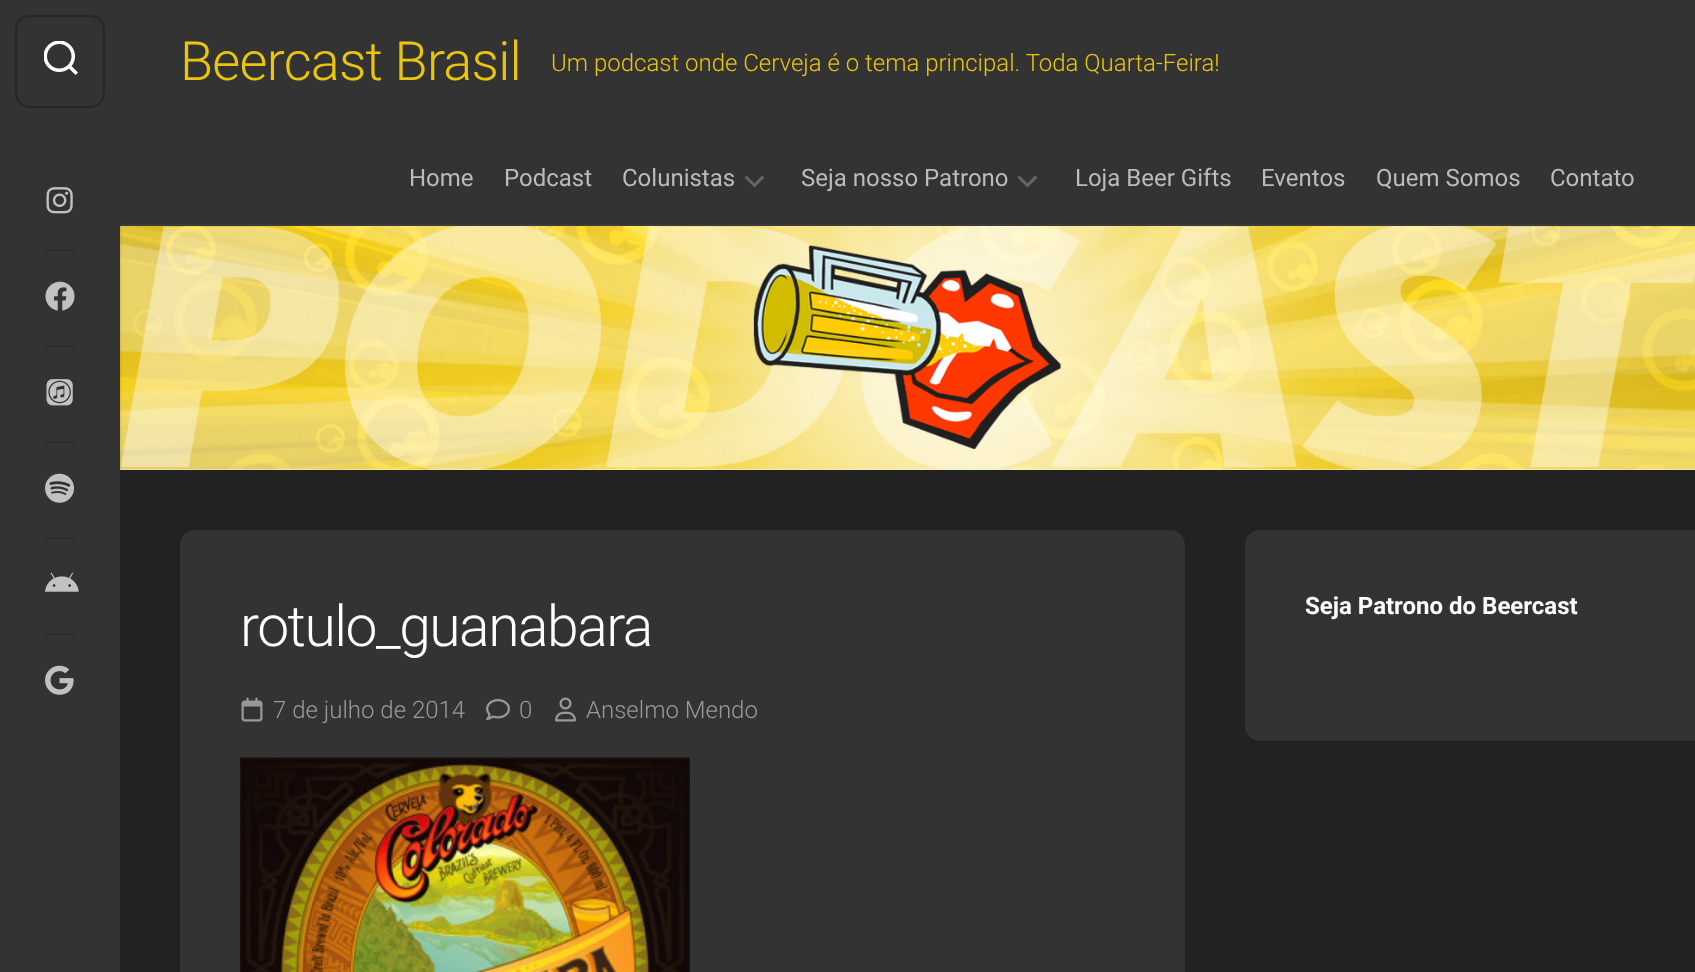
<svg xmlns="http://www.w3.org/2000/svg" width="1695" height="972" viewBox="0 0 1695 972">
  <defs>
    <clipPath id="clip1"><rect x="744" y="176" width="21" height="12"/></clipPath>
    <clipPath id="clip2"><rect x="1017" y="176" width="21" height="12"/></clipPath>
  </defs>
  <rect width="100%" height="100%" fill="#222222"/>
  <rect x="120" y="0" width="1575" height="224" fill="#333333"/>
  <rect x="120" y="224" width="1575" height="2" fill="#3a3a3a"/>
  <rect x="120" y="469" width="1575" height="1" fill="#eeeeee"/>
  <image x="120" y="226" width="1575" height="244" href="img8.png"/>
  <rect x="120" y="224" width="2" height="246" fill="#000000" fill-opacity="0.05"/>
  <rect x="0" y="0" width="120" height="972" fill="#333333"/>
  <rect x="16" y="16" width="88" height="91" rx="14" fill="none" stroke="#262626" stroke-width="2"/>
  <image x="44" y="41" width="34" height="34" href="img1.png"/>
  <image x="46" y="187" width="27" height="27" href="img2.png"/>
  <rect x="45" y="249" width="30" height="2" fill="#2b2b2b"/>
  <image x="45" y="281" width="30" height="30" href="img3.png"/>
  <rect x="45" y="345" width="30" height="2" fill="#2b2b2b"/>
  <image x="46" y="379" width="27" height="27" href="img4.png"/>
  <rect x="45" y="441" width="30" height="2" fill="#2b2b2b"/>
  <image x="45" y="473" width="30" height="30" href="img5.png"/>
  <rect x="45" y="537" width="30" height="2" fill="#2b2b2b"/>
  <image x="45" y="572" width="34" height="20" href="img6.png"/>
  <rect x="45" y="633" width="30" height="2" fill="#2b2b2b"/>
  <image x="45" y="665" width="29" height="30" href="img7.png"/>
  <text x="180" y="80" font-family="Roboto" font-size="54" font-weight="300" letter-spacing="-0.75" fill="#eac50e">Beercast Brasil</text>
  <text x="551" y="71" font-family="Roboto" font-size="24" font-weight="300" fill="#eac50e">Um podcast onde Cerveja é o tema principal. Toda Quarta-Feira!</text>
  <text x="409" y="186" font-family="Roboto" font-size="24" fill="#bbbbbb">Home</text>
  <text x="504" y="186" font-family="Roboto" font-size="24" fill="#bbbbbb">Podcast</text>
  <text x="622" y="186" font-family="Roboto" font-size="24" fill="#bbbbbb">Colunistas</text>
  <g clip-path="url(#clip1)">
    <path d="M754.5 183.5L762 175.5L764.5 177.5L754.5 187.5L744.5 177.5L746.5 175.5Z" fill="#666666" fill-rule="evenodd"/>
  </g>
  <text x="801" y="186" font-family="Roboto" font-size="24" fill="#bbbbbb">Seja nosso Patrono</text>
  <g clip-path="url(#clip2)">
    <path d="M1027.5 183.5L1035 175.5L1037.5 177.5L1027.5 187.5L1017.5 177.5L1019.5 175.5Z" fill="#666666" fill-rule="evenodd"/>
  </g>
  <text x="1075" y="186" font-family="Roboto" font-size="24" fill="#bbbbbb">Loja Beer Gifts</text>
  <text x="1261" y="186" font-family="Roboto" font-size="24" fill="#bbbbbb">Eventos</text>
  <text x="1376" y="186" font-family="Roboto" font-size="24" fill="#bbbbbb">Quem Somos</text>
  <text x="1550" y="186" font-family="Roboto" font-size="24" fill="#bbbbbb">Contato</text>
  <rect x="180" y="530" width="1005" height="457" rx="15" fill="#333333"/>
  <text x="240" y="646" font-family="Roboto" font-size="57" font-weight="300" letter-spacing="-1.5" fill="#ffffff">rotulo_guanabara</text>
  <image x="241" y="697" width="22" height="25" href="img9.png"/>
  <text x="273" y="718" font-family="Roboto" font-size="24" font-weight="300" fill="#999999">7 de julho de 2014</text>
  <image x="486" y="699" width="24" height="21" href="img10.png"/>
  <text x="519" y="718" font-family="Roboto" font-size="24" font-weight="300" fill="#999999">0</text>
  <image x="555" y="697" width="21" height="25" href="img11.png"/>
  <text x="586" y="718" font-family="Roboto" font-size="24" font-weight="300" fill="#999999">Anselmo Mendo</text>
  <image x="240" y="757" width="450" height="215" href="img12.png"/>
  <path d="M1260 530H1695V741H1260C1251.5 741 1245 734.5 1245 726V545C1245 536.5 1251.5 530 1260 530Z" fill="#333333"/>
  <text x="1305" y="614" font-family="Roboto" font-size="24" font-weight="bold" fill="#ffffff">Seja Patrono do Beercast</text>
</svg>
